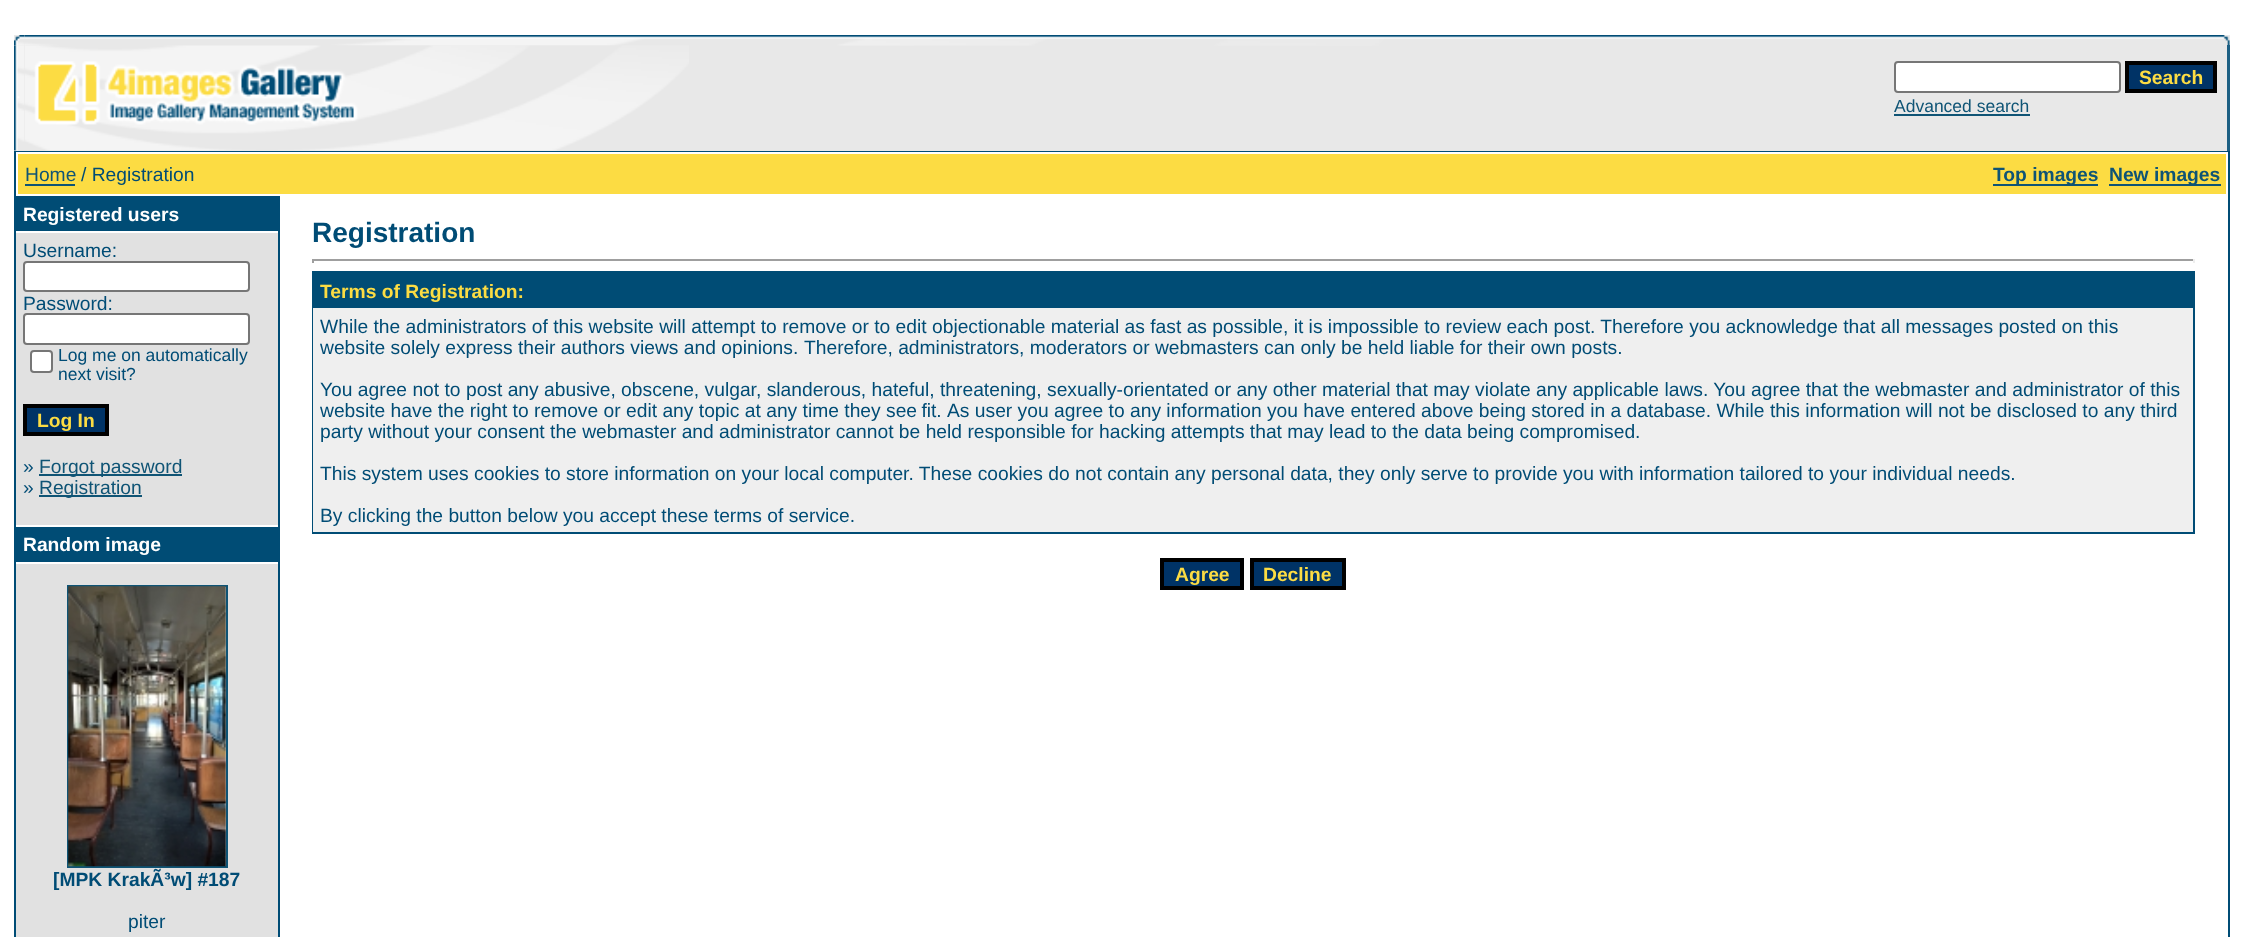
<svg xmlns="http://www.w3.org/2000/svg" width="2243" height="937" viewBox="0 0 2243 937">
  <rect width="100%" height="100%" fill="#ffffff"/>
  <rect x="14" y="35" width="2216" height="116" fill="#e8e8e8"/>
  <image x="14" y="35" width="11" height="11" href="img1.png"/>
  <image x="24" y="35" width="2195" height="11" href="img2.png"/>
  <image x="2219" y="35" width="11" height="11" href="img3.png"/>
  <image x="14" y="45" width="11" height="106" href="img4.png"/>
  <image x="25" y="45" width="664" height="106" href="img5.png"/>
  <rect x="1895" y="62" width="225" height="30" rx="3" fill="#ffffff" stroke="#767676" stroke-width="2"/>
  <rect x="2127" y="63" width="88" height="28" fill="#003366" stroke="#000000" stroke-width="4"/>
  <text x="2139" y="84" font-family="Liberation Sans" font-size="19.25" font-weight="bold" fill="#fcdc43">Search</text>
  <text x="1894" y="112" font-family="Liberation Sans" font-size="17.5" fill="#0f5475">Advanced search</text>
  <rect x="1894" y="114" width="136" height="2" fill="#0f5475"/>
  <rect x="2227" y="45" width="3" height="106" fill="#1d5f83"/>
  <rect x="14" y="151" width="2216" height="786" fill="#004c75"/>
  <rect x="16" y="152" width="2212" height="785" fill="#ffffff"/>
  <rect x="18" y="154" width="2208" height="40" fill="#fcdc43"/>
  <text x="25" y="181" font-family="Liberation Sans" font-size="19.25" fill="#0f5475">Home</text>
  <rect x="25" y="184" width="50" height="2" fill="#0f5475"/>
  <text x="81" y="181" font-family="Liberation Sans" font-size="19.25" fill="#004c75">/ Registration</text>
  <rect x="1993" y="184" width="105" height="2" fill="#0f5475"/>
  <text x="1993" y="181" font-family="Liberation Sans" font-size="19.25" font-weight="bold" fill="#0f5475">Top images</text>
  <rect x="2109" y="184" width="112" height="2" fill="#0f5475"/>
  <text x="2109" y="181" font-family="Liberation Sans" font-size="19.25" font-weight="bold" fill="#0f5475">New images</text>
  <rect x="16" y="196" width="262" height="35" fill="#004c75"/>
  <text x="23" y="221" font-family="Liberation Sans" font-size="19.25" font-weight="bold" fill="#ffffff">Registered users</text>
  <rect x="16" y="233" width="262" height="292" fill="#e1e1e1"/>
  <text x="23" y="257" font-family="Liberation Sans" font-size="19.25" fill="#004c75">Username:</text>
  <rect x="24" y="262" width="225" height="29" rx="3" fill="#ffffff" stroke="#767676" stroke-width="2"/>
  <text x="23" y="310" font-family="Liberation Sans" font-size="19.25" fill="#004c75">Password:</text>
  <rect x="24" y="314" width="225" height="30" rx="3" fill="#ffffff" stroke="#767676" stroke-width="2"/>
  <rect x="31" y="351" width="21" height="21" rx="3" fill="#ffffff" stroke="#767676" stroke-width="2"/>
  <text x="58" y="361" font-family="Liberation Sans" font-size="17.5" fill="#004c75">Log me on automatically</text>
  <text x="58" y="380" font-family="Liberation Sans" font-size="17.5" fill="#004c75">next visit?</text>
  <rect x="25" y="406" width="82" height="28" fill="#003366" stroke="#000000" stroke-width="4"/>
  <text x="37" y="427" font-family="Liberation Sans" font-size="19.25" font-weight="bold" fill="#fcdc43">Log In</text>
  <text x="23" y="473" font-family="Liberation Sans" font-size="19.25" fill="#004c75">»</text>
  <rect x="39" y="474" width="143" height="2" fill="#0f5475"/>
  <text x="39" y="473" font-family="Liberation Sans" font-size="19.25" fill="#0f5475">Forgot password</text>
  <text x="23" y="494" font-family="Liberation Sans" font-size="19.25" fill="#004c75">»</text>
  <rect x="39" y="495" width="103" height="2" fill="#0f5475"/>
  <text x="39" y="494" font-family="Liberation Sans" font-size="19.25" fill="#0f5475">Registration</text>
  <rect x="16" y="527" width="262" height="35" fill="#004c75"/>
  <text x="23" y="551" font-family="Liberation Sans" font-size="19.25" font-weight="bold" fill="#ffffff">Random image</text>
  <rect x="16" y="564" width="262" height="373" fill="#e1e1e1"/>
  <rect x="68" y="586" width="159" height="281" fill="none" stroke="#0f5475" stroke-width="2"/>
  <image x="68" y="586" width="158" height="281" href="img6.png"/>
  <text x="53" y="886" font-family="Liberation Sans" font-size="19.25" font-weight="bold" fill="#004c75">[MPK KrakÃ³w] #187</text>
  <text x="128" y="928" font-family="Liberation Sans" font-size="19.25" fill="#004c75">piter</text>
  <rect x="278" y="196" width="2" height="741" fill="#004c75"/>
  <text x="312" y="242" font-family="Liberation Sans" font-size="28" font-weight="bold" fill="#004c75">Registration</text>
  <rect x="312" y="259" width="1883" height="2" fill="#9f9f9f"/>
  <rect x="2193" y="259" width="2" height="4" fill="#eeeeee"/>
  <rect x="312" y="259" width="2" height="4" fill="#9f9f9f"/>
  <rect x="312" y="271" width="1883" height="263" fill="#004c75"/>
  <text x="320" y="298" font-family="Liberation Sans" font-size="19.25" font-weight="bold" fill="#fcdc43">Terms of Registration:</text>
  <rect x="313" y="308" width="1880" height="224" fill="#efefef"/>
  <text x="320" y="333" font-family="Liberation Sans" font-size="19.25" fill="#004c75">While the administrators of this website will attempt to remove or to edit objectionable material as fast as possible, it is impossible to review each post. Therefore you acknowledge that all messages posted on this</text>
  <text x="320" y="354" font-family="Liberation Sans" font-size="19.25" fill="#004c75">website solely express their authors views and opinions.</text>
  <text x="804" y="354" font-family="Liberation Sans" font-size="19.25" fill="#004c75">Therefore, administrators, moderators or webmasters can only be held liable for their own posts.</text>
  <text x="320" y="396" font-family="Liberation Sans" font-size="19.25" fill="#004c75">You agree not to post any abusive, obscene, vulgar, slanderous, hateful, threatening, sexually-orientated or any other material that may violate any applicable laws. You agree that the webmaster and administrator of this</text>
  <text x="320" y="417" font-family="Liberation Sans" font-size="19.25" fill="#004c75">website have the right to remove or edit any topic at any time they</text>
  <text x="886" y="417" word-spacing="-1" font-family="Liberation Sans" font-size="19.25" fill="#004c75">see fit.</text>
  <text x="947" y="417" font-family="Liberation Sans" font-size="19.25" fill="#004c75">As user you agree to any information you have entered above being stored in a database. While this information will not be disclosed to any third</text>
  <text x="320" y="438" font-family="Liberation Sans" font-size="19.25" fill="#004c75">party without your consent the webmaster and administrator cannot be held responsible for hacking attempts that may lead to the data being compromised.</text>
  <text x="320" y="480" font-family="Liberation Sans" font-size="19.25" fill="#004c75">This system uses cookies to store information on your local computer. These cookies do not contain any personal data, they only serve to provide you with information tailored to your individual needs.</text>
  <text x="320" y="522" font-family="Liberation Sans" font-size="19.25" fill="#004c75">By clicking the button below you accept these terms of service.</text>
  <rect x="1162" y="560" width="80" height="28" fill="#003366" stroke="#000000" stroke-width="4"/>
  <text x="1175" y="581" font-family="Liberation Sans" font-size="19.25" font-weight="bold" fill="#fcdc43">Agree</text>
  <rect x="1252" y="560" width="92" height="28" fill="#003366" stroke="#000000" stroke-width="4"/>
  <text x="1263" y="581" font-family="Liberation Sans" font-size="19.25" font-weight="bold" fill="#fcdc43">Decline</text>
</svg>
